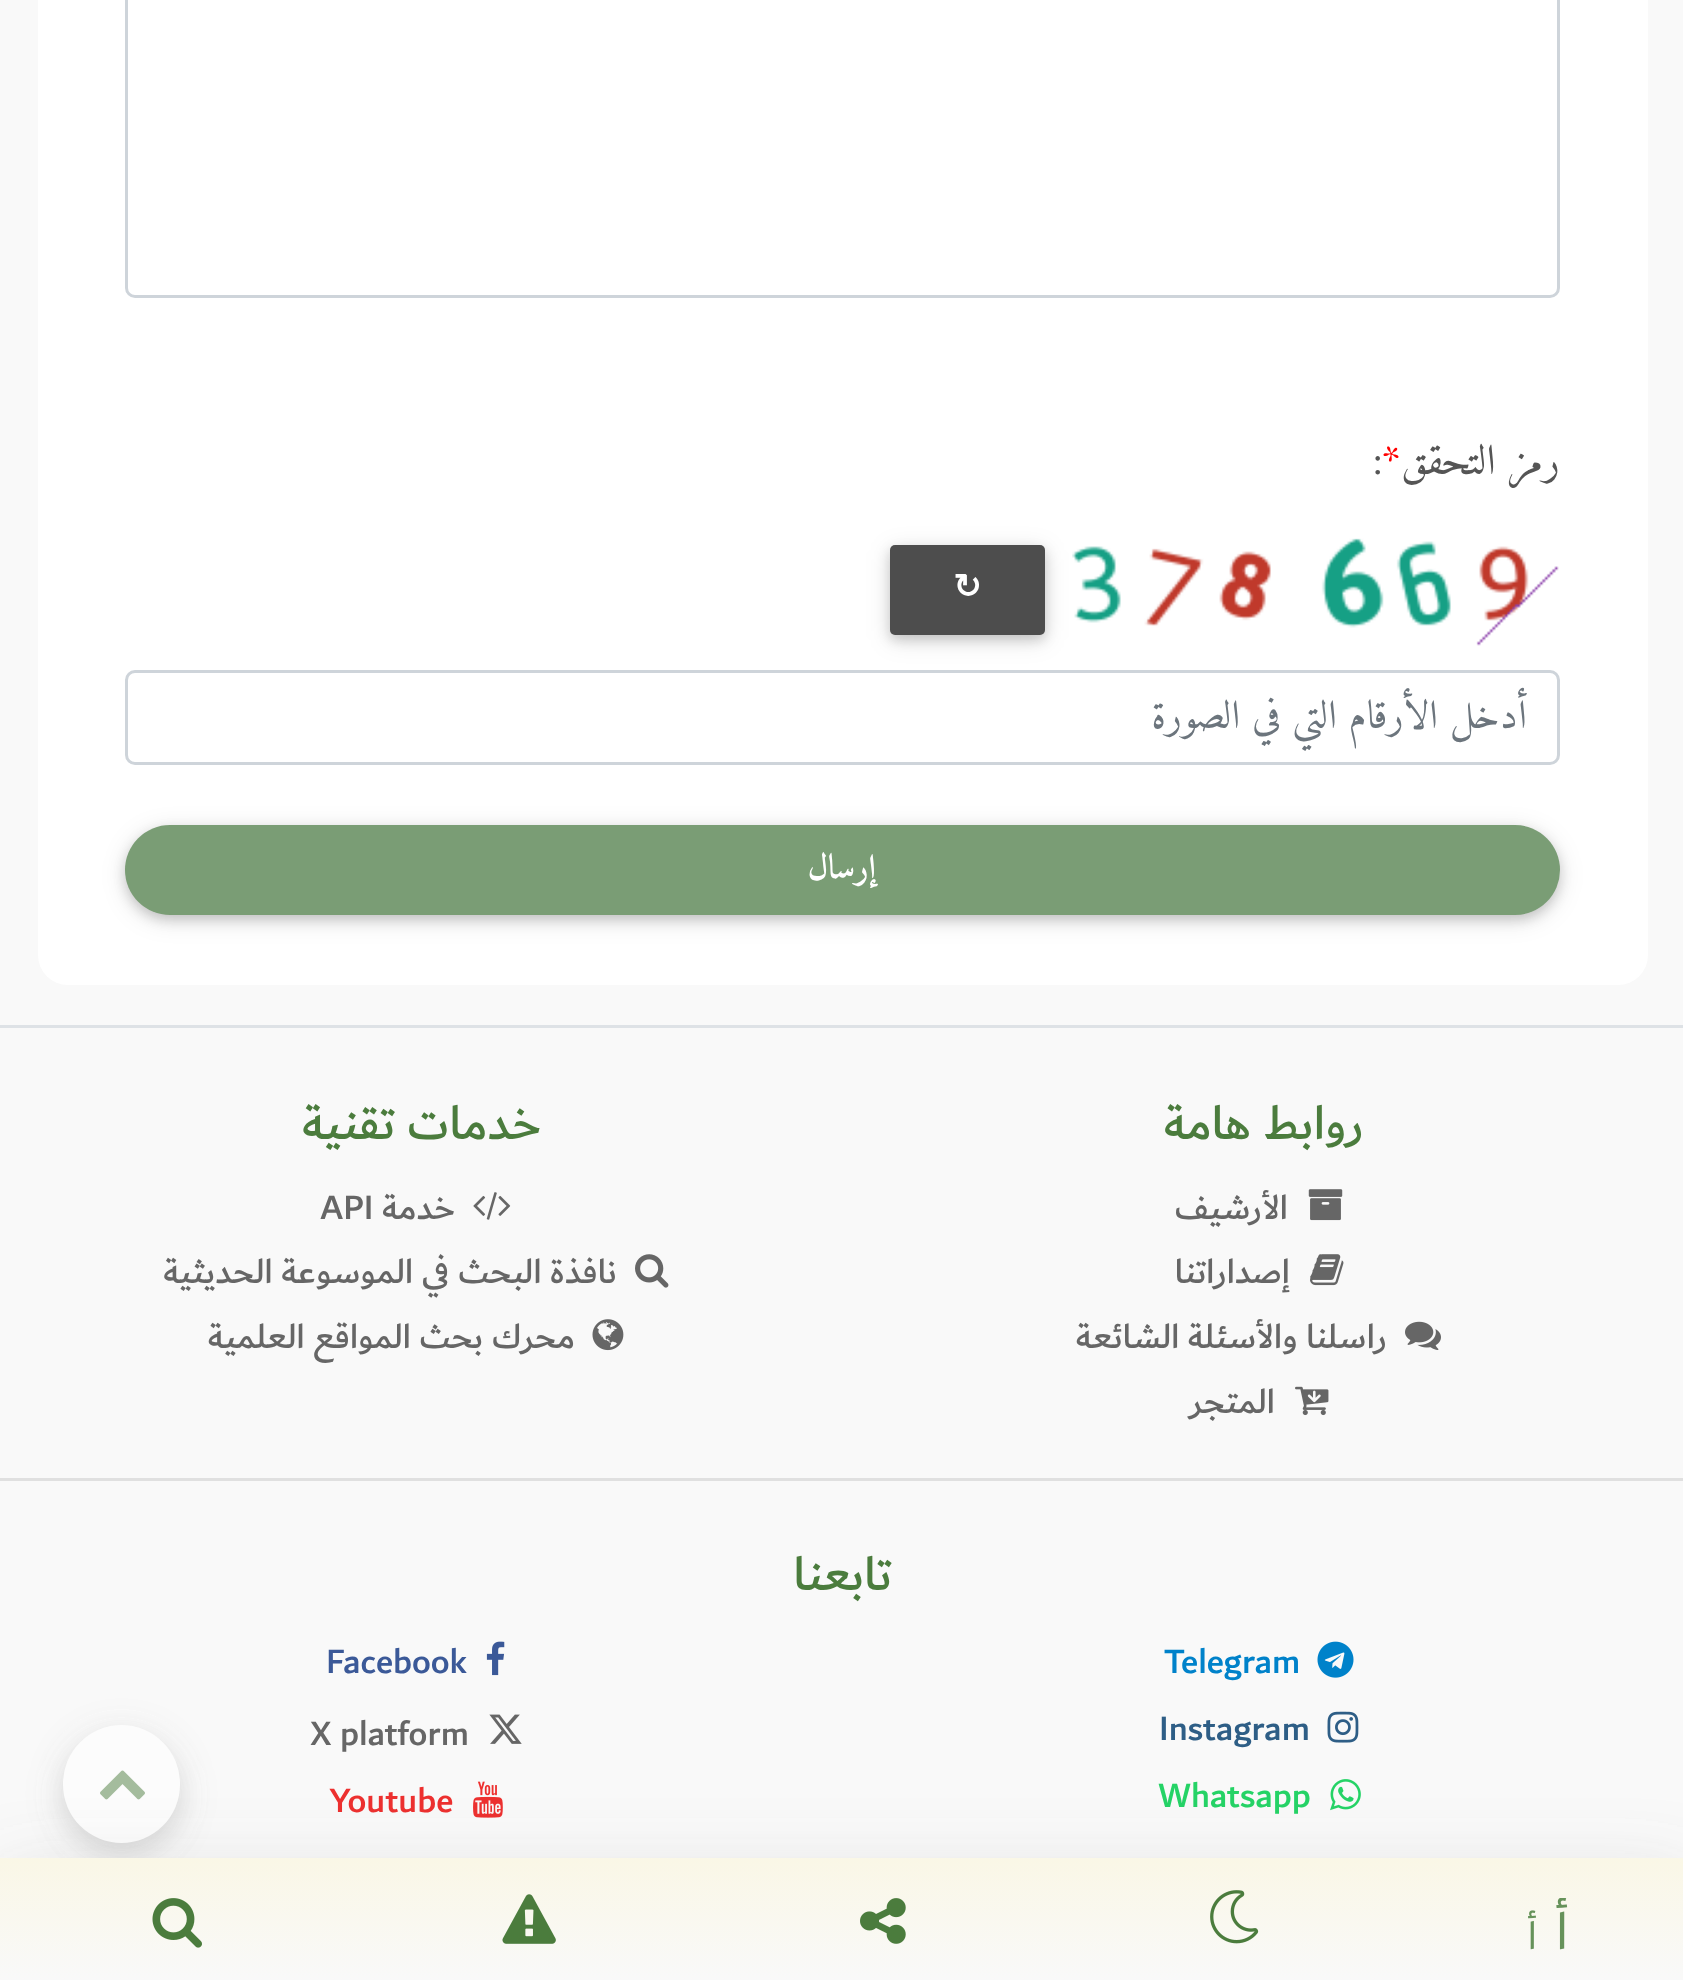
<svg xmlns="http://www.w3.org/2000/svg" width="1683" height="1980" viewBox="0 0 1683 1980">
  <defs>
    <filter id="blur1" x="-50%" y="-200%" width="200%" height="500%"><feGaussianBlur stdDeviation="12.5"/></filter>
    <filter id="blur2" x="-50%" y="-200%" width="200%" height="500%"><feGaussianBlur stdDeviation="6"/></filter>
    <filter id="blur3" x="-50%" y="-200%" width="200%" height="500%"><feGaussianBlur stdDeviation="19"/></filter>
    <filter id="blur4" x="-50%" y="-200%" width="200%" height="500%"><feGaussianBlur stdDeviation="14"/></filter>
    <filter id="blur5" x="-50%" y="-200%" width="200%" height="500%"><feGaussianBlur stdDeviation="40"/></filter>
    <linearGradient id="g1" gradientUnits="userSpaceOnUse" x1="843" y1="1858" x2="843" y2="1980"><stop offset="0" stop-color="#faf7e6"/><stop offset="1" stop-color="#f9f9f9"/></linearGradient>
  </defs>
  <rect width="100%" height="100%" fill="#f9f9f9"/>
  <rect x="38" y="-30" width="1610" height="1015" rx="30" fill="#ffffff"/>
  <rect x="126.5" y="-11.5" width="1432" height="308" rx="8.5" fill="none" stroke="#ced4da" stroke-width="3"/>
  <text x="1560" y="474" font-family="Amiri" font-size="42.5" direction="rtl" fill="#555555">رمز التحقق</text>
  <text x="1382" y="474" font-family="Amiri" font-size="42.5" fill="#ff0000">*</text>
  <text x="1373" y="474" font-family="Amiri" font-size="42.5" fill="#555555">:</text>
  <image x="1072" y="538" width="487" height="108" href="img1.png"/>
  <rect x="126.5" y="671.5" width="1432" height="92" rx="8.5" fill="none" stroke="#ced4da" stroke-width="3"/>
  <rect x="890" y="550" width="155" height="90" rx="5" fill="#000000" fill-opacity="0.12" filter="url(#blur1)"/>
  <rect x="890" y="550" width="155" height="90" rx="5" fill="#000000" fill-opacity="0.16" filter="url(#blur2)"/>
  <rect x="890" y="545" width="155" height="90" rx="5" fill="#4d4d4d"/>
  <text x="953" y="598" font-family="DejaVu Sans" font-size="34" font-weight="bold" fill="#ffffff">↻</text>
  <text x="1527" y="728" font-family="Amiri" font-size="40" direction="rtl" fill="#6c757d">أدخل الأرقام التي في الصورة</text>
  <rect x="125" y="830" width="1435" height="90" rx="45" fill="#000000" fill-opacity="0.12" filter="url(#blur1)"/>
  <rect x="125" y="830" width="1435" height="90" rx="45" fill="#000000" fill-opacity="0.16" filter="url(#blur2)"/>
  <rect x="125" y="825" width="1435" height="90" rx="45" fill="#7a9d75"/>
  <text x="876" y="878" font-family="Amiri" font-size="34" font-weight="bold" direction="rtl" fill="#ffffff">إرسال</text>
  <rect x="0" y="1025" width="1683" height="3" fill="#dee2e6"/>
  <text x="1364" y="1139" font-family="'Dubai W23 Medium'" font-size="50" font-weight="500" direction="rtl" fill="#4b7c3d">روابط هامة</text>
  <image x="1308" y="1189" width="35" height="32" href="img2.png"/>
  <text x="1288" y="1219" font-family="'Dubai W23 Medium'" font-size="36" font-weight="500" direction="rtl" fill="#666666">الأرشيف</text>
  <image x="1310" y="1254" width="34" height="32" href="img3.png"/>
  <text x="1290" y="1283" font-family="'Dubai W23 Medium'" font-size="36" font-weight="500" direction="rtl" fill="#666666">إصداراتنا</text>
  <image x="1405" y="1321" width="36" height="29" href="img4.png"/>
  <text x="1387" y="1348" font-family="'Dubai W23 Medium'" font-size="36" font-weight="500" direction="rtl" fill="#666666">راسلنا والأسئلة الشائعة</text>
  <image x="1295" y="1386" width="34" height="30" href="img5.png"/>
  <text x="1275" y="1413" font-family="'Dubai W23 Medium'" font-size="36" font-weight="500" direction="rtl" fill="#666666">المتجر</text>
  <text x="541" y="1139" font-family="'Dubai W23 Medium'" font-size="50" font-weight="500" direction="rtl" fill="#4b7c3d">خدمات تقنية</text>
  <image x="473" y="1192" width="38" height="28" href="img6.png"/>
  <text x="455" y="1219" font-family="'Dubai W23 Medium'" font-size="36" font-weight="500" direction="rtl" fill="#666666">خدمة</text>
  <text x="320" y="1219" font-family="'Dubai W23 Medium'" font-size="36" font-weight="500" fill="#666666">API</text>
  <image x="635" y="1254" width="34" height="34" href="img7.png"/>
  <text x="617" y="1283" font-family="'Dubai W23 Medium'" font-size="36" font-weight="500" direction="rtl" fill="#666666">نافذة البحث في الموسوعة الحديثية</text>
  <image x="592" y="1319" width="32" height="32" href="img8.png"/>
  <text x="575" y="1348" font-family="'Dubai W23 Medium'" font-size="36" font-weight="500" direction="rtl" fill="#666666">محرك بحث المواقع العلمية</text>
  <rect x="0" y="1478" width="1683" height="3" fill="#e0e0e0"/>
  <text x="892" y="1590" font-family="'Dubai W23 Medium'" font-size="50" font-weight="500" direction="rtl" fill="#4b7c3d">تابعنا</text>
  <image x="1317" y="1641" width="37" height="37" href="img9.png"/>
  <text x="1164" y="1673" font-family="'Dubai W23 Medium'" font-size="36" font-weight="500" fill="#0082ca">Telegram</text>
  <image x="1327" y="1711" width="32" height="32" href="img10.png"/>
  <text x="1159" y="1740" font-family="'Dubai W23 Medium'" font-size="36" font-weight="500" fill="#2e5e86">Instagram</text>
  <image x="1330" y="1779" width="31" height="32" href="img11.png"/>
  <text x="1158" y="1807" font-family="'Dubai W23 Medium'" font-size="36" font-weight="500" fill="#25d366">Whatsapp</text>
  <image x="486" y="1641" width="19" height="35" href="img12.png"/>
  <text x="326" y="1673" font-family="'Dubai W23 Medium'" font-size="36" font-weight="500" fill="#3b5998">Facebook</text>
  <image x="489" y="1714" width="33" height="30" href="img13.png"/>
  <text x="310" y="1745" font-family="'Dubai W23 Medium'" font-size="36" font-weight="500" fill="#666666">X platform</text>
  <image x="473" y="1781" width="30" height="37" href="img14.png"/>
  <text x="329" y="1812" font-family="'Dubai W23 Medium'" font-size="36" font-weight="500" fill="#ed302f">Youtube</text>
  <rect x="63" y="1735" width="117" height="118" rx="58.5" fill="#7d7d7d" fill-opacity="0.15" filter="url(#blur3)"/>
  <rect x="63" y="1738" width="117" height="117" rx="58.5" fill="#7d7d7d" fill-opacity="0.18" filter="url(#blur4)"/>
  <rect x="63" y="1725" width="117" height="118" rx="58.5" fill="#fcfcfc"/>
  <image x="100" y="1770" width="45" height="30" href="img15.png"/>
  <rect x="0" y="1883" width="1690" height="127" fill="#787878" fill-opacity="0.25" filter="url(#blur5)"/>
  <rect x="0" y="1858" width="1683" height="122" fill="url(#g1)"/>
  <image x="1528" y="1898" width="40" height="52" href="img16.png"/>
  <image x="1210" y="1890" width="49" height="54" href="img17.png"/>
  <image x="860" y="1898" width="46" height="46" href="img18.png"/>
  <image x="502" y="1894" width="54" height="50" href="img19.png"/>
  <image x="152" y="1898" width="50" height="50" href="img20.png"/>
</svg>
